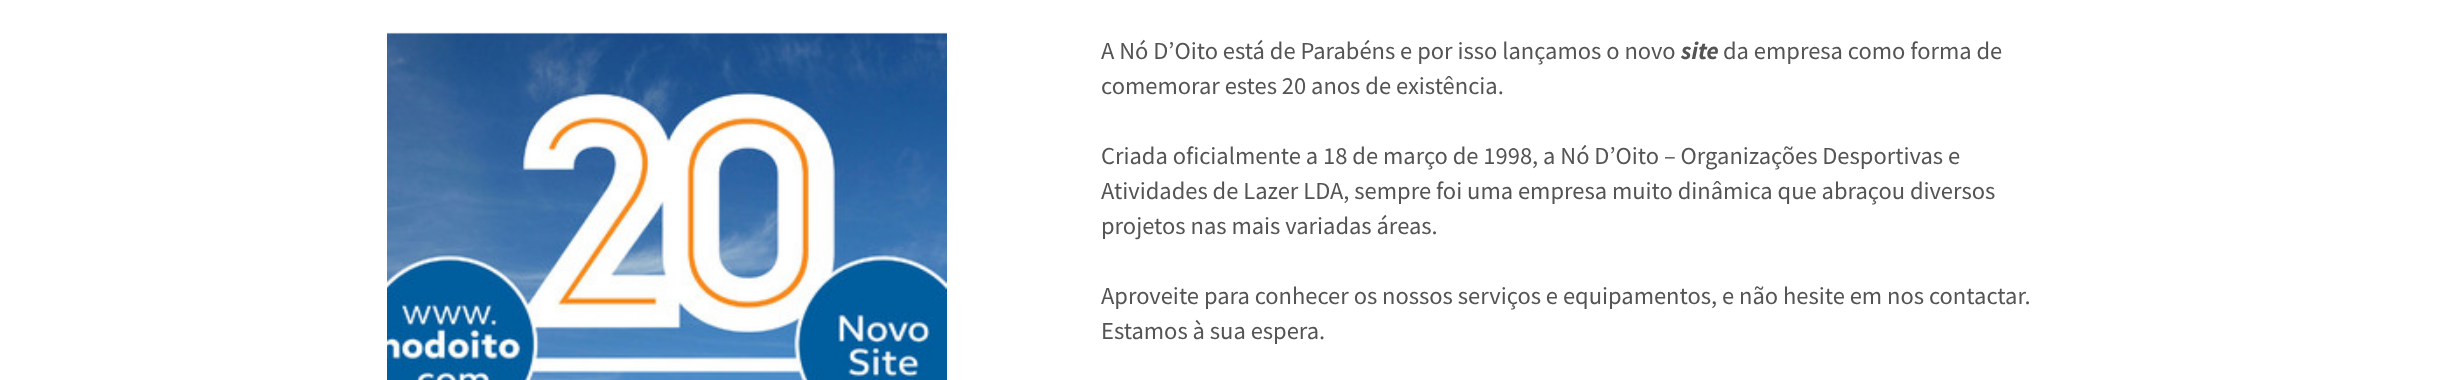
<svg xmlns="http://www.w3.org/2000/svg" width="2452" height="380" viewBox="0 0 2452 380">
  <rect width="100%" height="100%" fill="#ffffff"/>
  <image x="387" y="32" width="560" height="348" href="img1.png"/>
  <text x="1101" y="59" font-family="Source Sans Pro" font-size="24.5" fill="#545454">A Nó D’Oito está de Parabéns e por isso lançamos o novo</text>
  <text x="1681" y="59" font-family="Source Sans Pro" font-size="24.5" font-weight="bold" font-style="italic" fill="#545454">site</text>
  <text x="1723" y="59" font-family="Source Sans Pro" font-size="24.5" fill="#545454">da empresa como forma de</text>
  <text x="1101" y="94" font-family="Source Sans Pro" font-size="24.5" fill="#545454">comemorar estes 20 anos de existência.</text>
  <text x="1101" y="164" font-family="Source Sans Pro" font-size="24.5" fill="#545454">Criada oficialmente a 18 de março de 1998, a Nó D’Oito – Organizações Desportivas e</text>
  <text x="1101" y="199" font-family="Source Sans Pro" font-size="24.5" fill="#545454">Atividades de Lazer LDA, sempre foi uma empresa muito dinâmica que abraçou diversos</text>
  <text x="1101" y="234" font-family="Source Sans Pro" font-size="24.5" fill="#545454">projetos nas mais variadas áreas.</text>
  <text x="1101" y="304" font-family="Source Sans Pro" font-size="24.5" fill="#545454">Aproveite para conhecer os nossos serviços e equipamentos, e não hesite em nos contactar.</text>
  <text x="1101" y="339" font-family="Source Sans Pro" font-size="24.5" fill="#545454">Estamos à sua espera.</text>
</svg>
